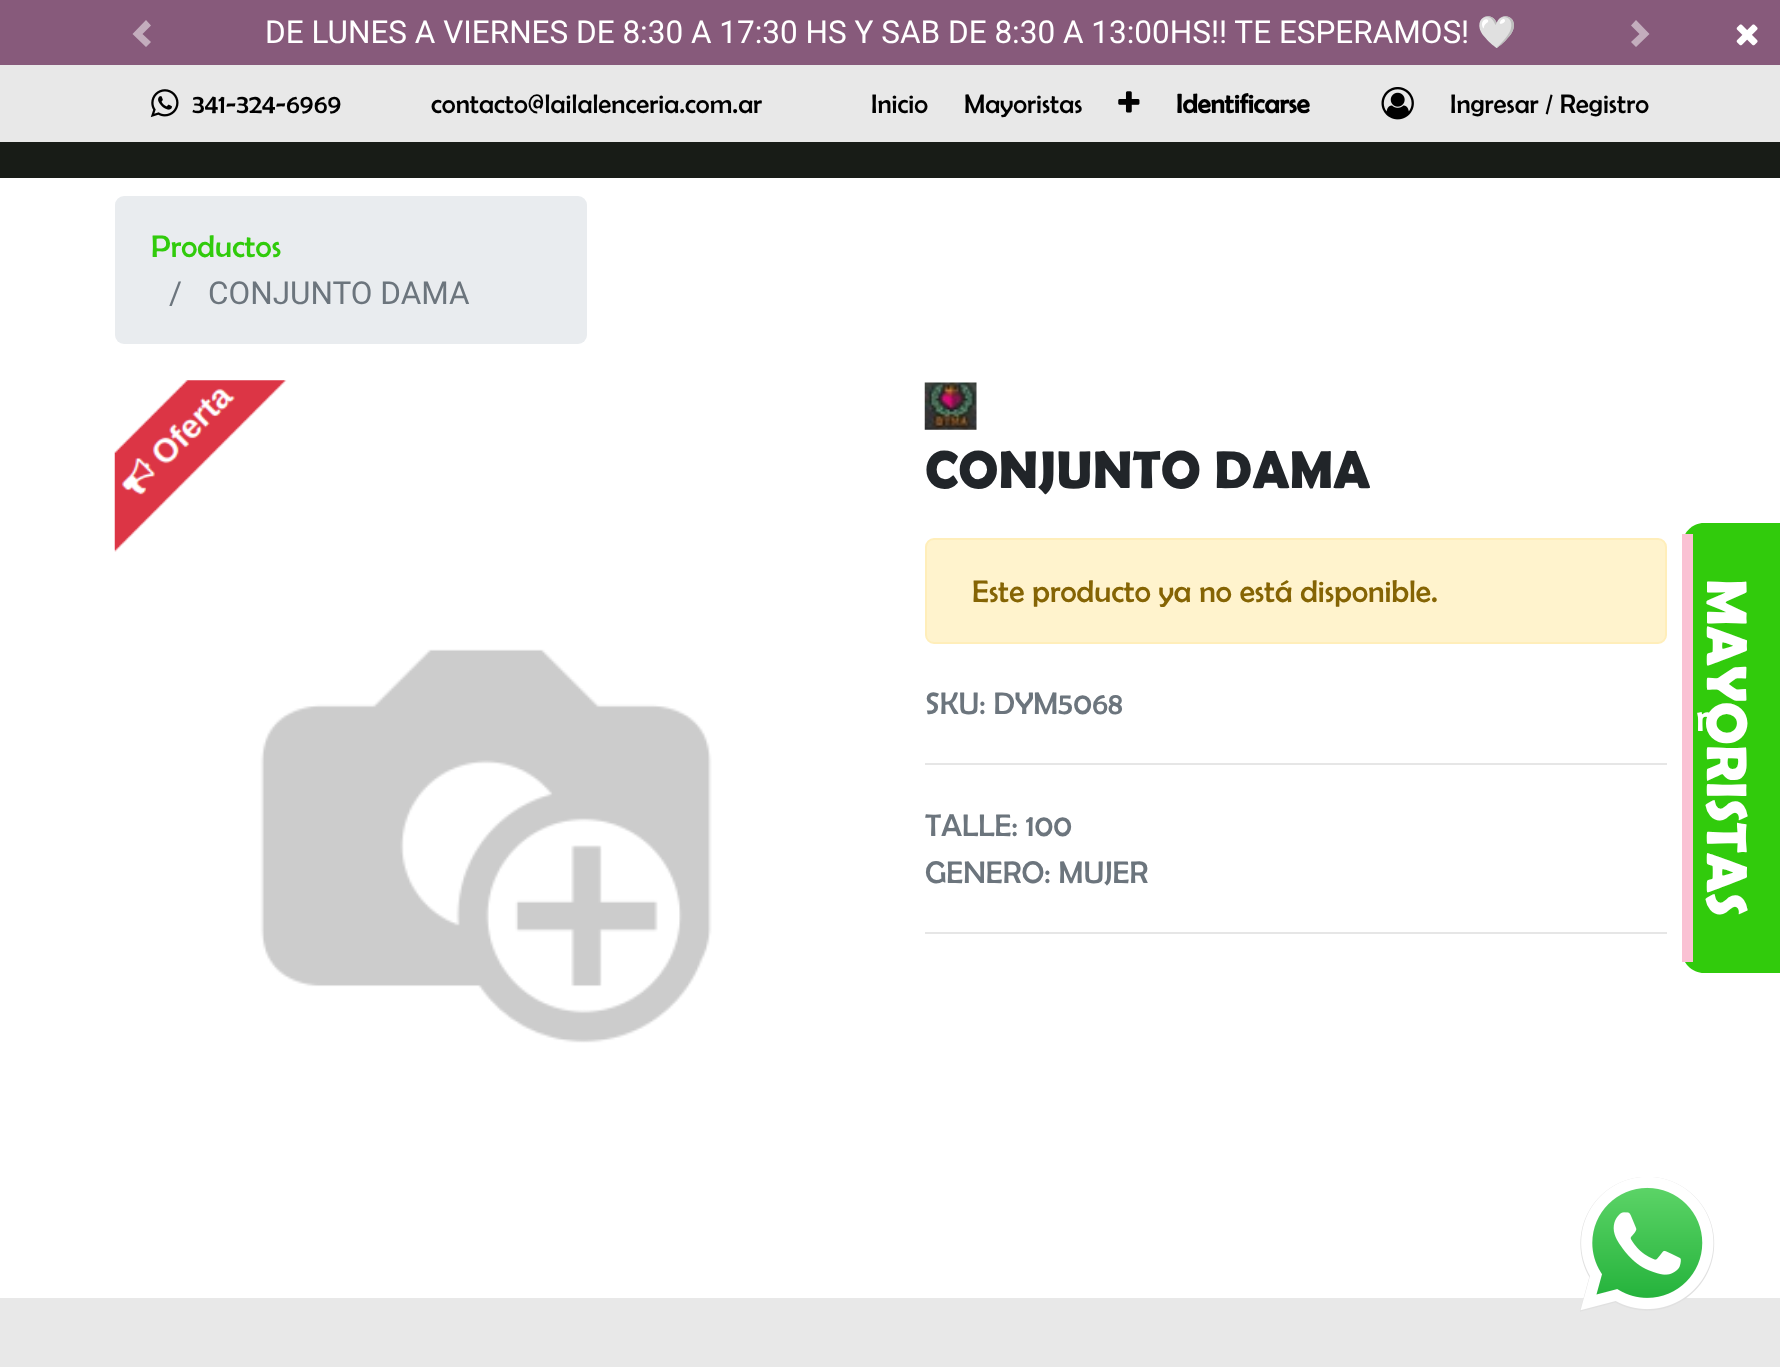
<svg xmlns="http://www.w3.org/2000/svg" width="1780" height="1367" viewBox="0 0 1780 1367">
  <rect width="100%" height="100%" fill="#ffffff"/>
  <rect x="0" y="0" width="1780" height="65" fill="#875a7b"/>
  <path d="M146 20L132.5 34L146 47L151 42L142.5 34L151 25.5Z" fill="#c3adbd"/>
  <text x="265" y="43" font-family="Roboto" font-size="31.5" fill="#ffffff">DE LUNES A VIERNES DE 8:30 A 17:30 HS Y SAB DE 8:30 A 13:00HS!! TE ESPERAMOS!</text>
  <text x="1477" y="43" font-family="Noto Color Emoji" font-size="31.5" fill="#ffffff">🤍</text>
  <path d="M1636 20L1631 25.5L1639.5 34L1631 42L1636 47L1649.5 34Z" fill="#c3adbd"/>
  <image x="1736" y="24" width="22" height="22" href="img1.png"/>
  <rect x="0" y="65" width="1780" height="77" fill="#e8e8e8"/>
  <image x="150" y="89" width="29" height="29" href="img2.png"/>
  <text x="192" y="113" font-family="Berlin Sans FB" font-size="27" fill="#000000">341-324-6969</text>
  <text x="431" y="113" font-family="Berlin Sans FB" font-size="27" fill="#000000">contacto@lailalenceria.com.ar</text>
  <text x="871" y="113" font-family="Berlin Sans FB" font-size="27" fill="#000000">Inicio</text>
  <text x="964" y="113" font-family="Berlin Sans FB" font-size="27" fill="#000000">Mayoristas</text>
  <image x="1118" y="91" width="22" height="22" href="img3.png"/>
  <text x="1176" y="113" font-family="Berlin Sans FB" font-size="27" font-weight="bold" fill="#000000">Identificarse</text>
  <image x="1381" y="87" width="33" height="33" href="img4.png"/>
  <text x="1450" y="113" font-family="Berlin Sans FB" font-size="27" fill="#000000">Ingresar / Registro</text>
  <rect x="0" y="142" width="1780" height="36" fill="#181c17"/>
  <rect x="115" y="196" width="472" height="148" rx="9" fill="#e9ecef"/>
  <text x="151" y="257" font-family="Berlin Sans FB" font-size="31.5" fill="#31cb0c">Productos</text>
  <text x="169" y="304" font-family="Roboto" font-size="31.5" fill="#6c757d">/</text>
  <text x="208" y="304" font-family="Roboto" font-size="31.5" fill="#6c757d">CONJUNTO DAMA</text>
  <image x="114" y="380" width="173" height="172" href="img5.png"/>
  <image x="260" y="649" width="452" height="394" href="img6.png"/>
  <image x="924" y="382" width="53" height="48" href="img7.png"/>
  <text x="925" y="488" font-family="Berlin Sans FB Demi" font-size="53.5" font-weight="600" fill="#212529">CONJUNTO DAMA</text>
  <rect x="926" y="539" width="740" height="104" rx="8" fill="#fff3cd" stroke="#ffeeba" stroke-width="2"/>
  <text x="972" y="602" font-family="Berlin Sans FB" font-size="31.5" fill="#856404">Este producto ya no está disponible.</text>
  <text x="925" y="714" font-family="Berlin Sans FB" font-size="31.5" fill="#6c757d">SKU: DYM5068</text>
  <rect x="925" y="763" width="742" height="2" fill="#e6e6e6"/>
  <text x="925" y="836" font-family="Berlin Sans FB" font-size="31.5" fill="#6c757d">TALLE: 100</text>
  <text x="925" y="883" font-family="Berlin Sans FB" font-size="31.5" fill="#6c757d">GENERO: MUJER</text>
  <rect x="925" y="932" width="742" height="2" fill="#e6e6e6"/>
  <rect x="0" y="1298" width="1780" height="69" fill="#e8e8e8"/>
  <path d="M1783 523V973H1704C1692 973 1682 963 1682 951V546C1682 533 1692 523 1704 523Z" fill="#31cb0c"/>
  <rect x="1682" y="534" width="11" height="428" fill="#fac1d3"/>
  <text x="1707" y="579" transform="rotate(90 1707 579)" font-family="Berlin Sans FB Demi" font-size="57.5" font-weight="600" fill="#ffffff">MAYORISTAS</text>
  <text x="1696" y="731" font-family="Berlin Sans FB" font-size="40" fill="#ffffff">r</text>
  <image x="1580" y="1177" width="135" height="135" href="img8.png"/>
</svg>
